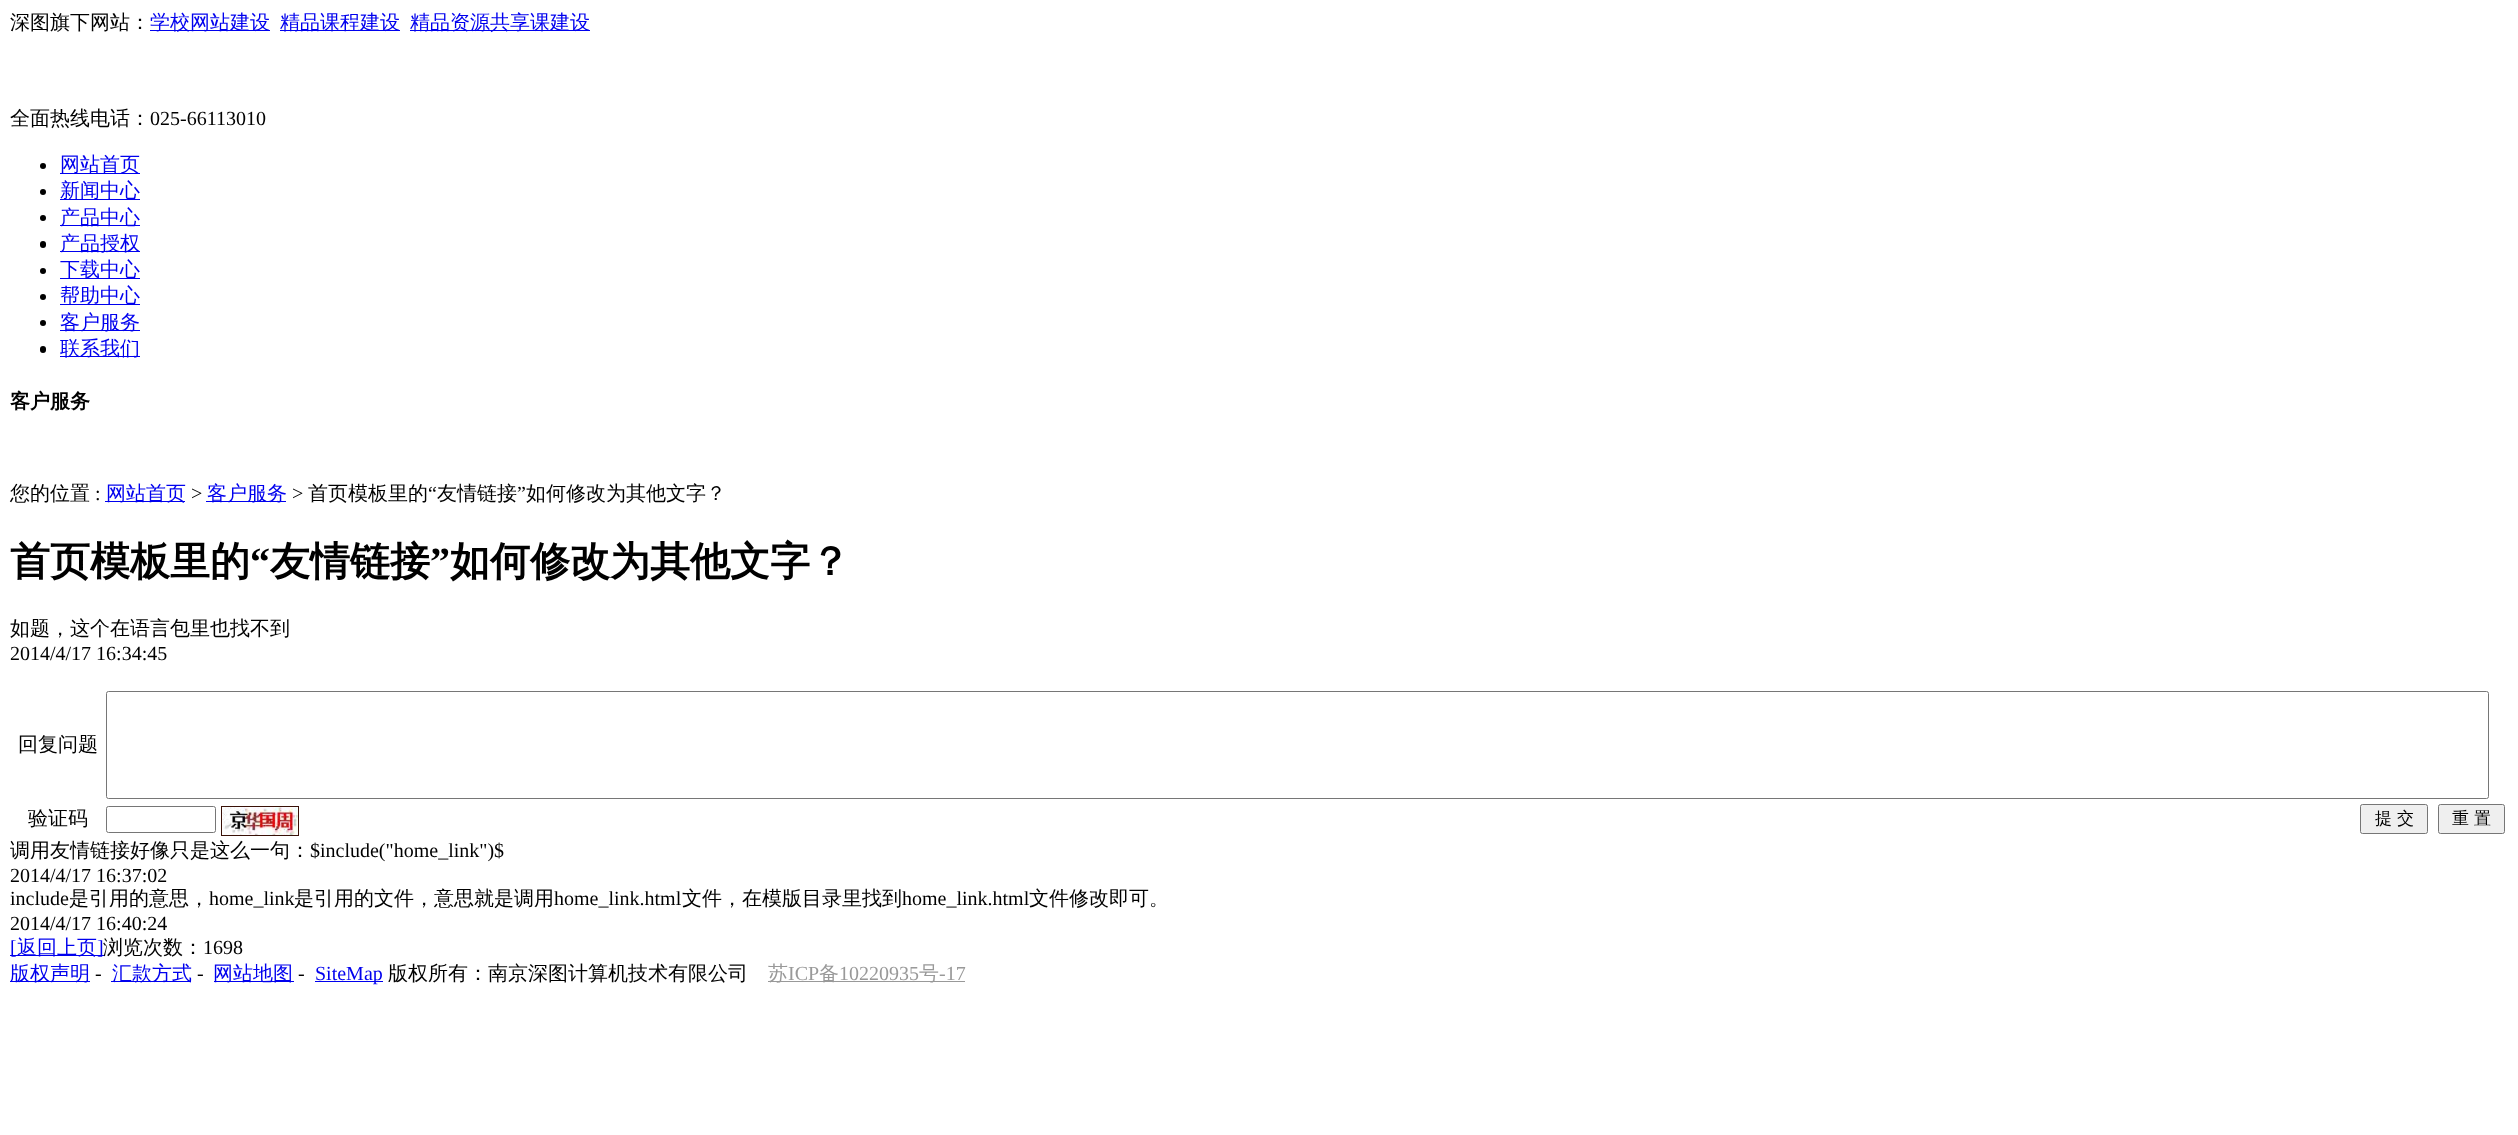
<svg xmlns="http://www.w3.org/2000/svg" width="2518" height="1135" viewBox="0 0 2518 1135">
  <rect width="100%" height="100%" fill="#ffffff"/>
  <text x="10" y="29" font-family="WenQuanYi Zen Hei" font-size="20" font-weight="500" fill="#000000">深图旗下网站：</text>
  <rect x="150" y="30" width="120" height="1" fill="#0000ee"/>
  <text x="150" y="29" font-family="WenQuanYi Zen Hei" font-size="20" font-weight="500" fill="#0000ee">学校网站建设</text>
  <rect x="280" y="30" width="120" height="1" fill="#0000ee"/>
  <text x="280" y="29" font-family="WenQuanYi Zen Hei" font-size="20" font-weight="500" fill="#0000ee">精品课程建设</text>
  <rect x="410" y="30" width="180" height="1" fill="#0000ee"/>
  <text x="410" y="29" font-family="WenQuanYi Zen Hei" font-size="20" font-weight="500" fill="#0000ee">精品资源共享课建设</text>
  <text x="10" y="125" font-family="WenQuanYi Zen Hei" font-size="20" font-weight="500" fill="#000000">全面热线电话：</text>
  <text x="150" y="125" font-family="Liberation Serif" font-size="20" fill="#000000">025-66113010</text>
  <circle cx="43" cy="166" r="3" fill="#000000"/>
  <rect x="60" y="173" width="80" height="1" fill="#0000ee"/>
  <text x="60" y="171" font-family="WenQuanYi Zen Hei" font-size="20" font-weight="500" fill="#0000ee">网站首页</text>
  <circle cx="43" cy="192" r="3" fill="#000000"/>
  <rect x="60" y="199" width="80" height="1" fill="#0000ee"/>
  <text x="60" y="197" font-family="WenQuanYi Zen Hei" font-size="20" font-weight="500" fill="#0000ee">新闻中心</text>
  <circle cx="43" cy="218" r="3" fill="#000000"/>
  <rect x="60" y="225" width="80" height="1" fill="#0000ee"/>
  <text x="60" y="224" font-family="WenQuanYi Zen Hei" font-size="20" font-weight="500" fill="#0000ee">产品中心</text>
  <rect x="40" y="241" width="6" height="7" rx="3" fill="#000000"/>
  <rect x="60" y="251" width="80" height="1" fill="#0000ee"/>
  <text x="60" y="250" font-family="WenQuanYi Zen Hei" font-size="20" font-weight="500" fill="#0000ee">产品授权</text>
  <circle cx="43" cy="271" r="3" fill="#000000"/>
  <rect x="60" y="278" width="80" height="1" fill="#0000ee"/>
  <text x="60" y="276" font-family="WenQuanYi Zen Hei" font-size="20" font-weight="500" fill="#0000ee">下载中心</text>
  <circle cx="43" cy="297" r="3" fill="#000000"/>
  <rect x="60" y="304" width="80" height="1" fill="#0000ee"/>
  <text x="60" y="302" font-family="WenQuanYi Zen Hei" font-size="20" font-weight="500" fill="#0000ee">帮助中心</text>
  <circle cx="43" cy="323" r="3" fill="#000000"/>
  <rect x="60" y="330" width="80" height="1" fill="#0000ee"/>
  <text x="60" y="329" font-family="WenQuanYi Zen Hei" font-size="20" font-weight="500" fill="#0000ee">客户服务</text>
  <rect x="40" y="346" width="6" height="7" rx="3" fill="#000000"/>
  <rect x="60" y="356" width="80" height="1" fill="#0000ee"/>
  <text x="60" y="355" font-family="WenQuanYi Zen Hei" font-size="20" font-weight="500" fill="#0000ee">联系我们</text>
  <text x="10" y="408" font-family="WenQuanYi Zen Hei" font-size="20" font-weight="bold" fill="#000000">客户服务</text>
  <text x="10" y="500" font-family="WenQuanYi Zen Hei" font-size="20" font-weight="500" fill="#000000">您的位置</text>
  <text x="95" y="500" font-family="Liberation Serif" font-size="20" fill="#000000">:</text>
  <rect x="105" y="501" width="80" height="1" fill="#0000ee"/>
  <text x="106" y="500" font-family="WenQuanYi Zen Hei" font-size="20" font-weight="500" fill="#0000ee">网站首页</text>
  <text x="191" y="500" font-family="Liberation Serif" font-size="20" fill="#000000">&gt;</text>
  <rect x="206" y="501" width="80" height="1" fill="#0000ee"/>
  <text x="207" y="500" font-family="WenQuanYi Zen Hei" font-size="20" font-weight="500" fill="#0000ee">客户服务</text>
  <text x="292" y="500" font-family="Liberation Serif" font-size="20" fill="#000000">&gt;</text>
  <text x="308" y="500" font-family="WenQuanYi Zen Hei" font-size="20" font-weight="500" fill="#000000">首页模板里的</text>
  <text x="428" y="500" font-family="Liberation Serif" font-size="20" fill="#000000">“</text>
  <text x="437" y="500" font-family="WenQuanYi Zen Hei" font-size="20" font-weight="500" fill="#000000">友情链接</text>
  <text x="517" y="500" font-family="Liberation Serif" font-size="20" fill="#000000">”</text>
  <text x="526" y="500" font-family="WenQuanYi Zen Hei" font-size="20" font-weight="500" fill="#000000">如何修改为其他文字？</text>
  <text x="10" y="575" font-family="WenQuanYi Zen Hei" font-size="40" font-weight="bold" fill="#000000">首页模板里的</text>
  <text x="250" y="575" font-family="Liberation Serif" font-size="40" font-weight="bold" fill="#000000">“</text>
  <text x="270" y="575" font-family="WenQuanYi Zen Hei" font-size="40" font-weight="bold" fill="#000000">友情链接</text>
  <text x="430" y="575" font-family="Liberation Serif" font-size="40" font-weight="bold" fill="#000000">”</text>
  <text x="450" y="575" font-family="WenQuanYi Zen Hei" font-size="40" font-weight="bold" fill="#000000">如何修改为其他文字？</text>
  <text x="10" y="635" font-family="WenQuanYi Zen Hei" font-size="20" font-weight="500" fill="#000000">如题，这个在语言包里也找不到</text>
  <text x="10" y="660" font-family="Liberation Serif" font-size="20" fill="#000000">2014/4/17 16:34:45</text>
  <text x="18" y="751" font-family="WenQuanYi Zen Hei" font-size="20" font-weight="500" fill="#000000">回复问题</text>
  <rect x="106.5" y="691.5" width="2382" height="107" rx="2" fill="none" stroke="#767676"/>
  <text x="28" y="825" font-family="WenQuanYi Zen Hei" font-size="20" font-weight="500" fill="#000000">验证码</text>
  <rect x="106.5" y="806.5" width="109" height="26" rx="2" fill="none" stroke="#767676"/>
  <rect x="221.5" y="806.5" width="77" height="29" fill="none" stroke="#391107"/>
  <image x="222" y="807" width="76" height="28" href="img1.png"/>
  <rect x="2360.5" y="804.5" width="67" height="29" rx="2" fill="#efefef" stroke="#767676"/>
  <text x="2375" y="824" font-family="WenQuanYi Zen Hei" font-size="17" font-weight="500" fill="#000000">提 交</text>
  <rect x="2438.5" y="804.5" width="66" height="29" rx="2" fill="#efefef" stroke="#767676"/>
  <text x="2452" y="824" font-family="WenQuanYi Zen Hei" font-size="17" font-weight="500" fill="#000000">重 置</text>
  <text x="10" y="857" font-family="WenQuanYi Zen Hei" font-size="20" font-weight="500" fill="#000000">调用友情链接好像只是这么一句：</text>
  <text x="310" y="857" font-family="Liberation Serif" font-size="20" fill="#000000">$include("home_link")$</text>
  <text x="10" y="882" font-family="Liberation Serif" font-size="20" fill="#000000">2014/4/17 16:37:02</text>
  <text x="10" y="905" font-family="Liberation Serif" font-size="20" fill="#000000">include</text>
  <text x="69" y="905" font-family="WenQuanYi Zen Hei" font-size="20" font-weight="500" fill="#000000">是引用的意思，</text>
  <text x="209" y="905" font-family="Liberation Serif" font-size="20" fill="#000000">home_link</text>
  <text x="294" y="905" font-family="WenQuanYi Zen Hei" font-size="20" font-weight="500" fill="#000000">是引用的文件，意思就是调用</text>
  <text x="554" y="905" font-family="Liberation Serif" font-size="20" fill="#000000">home_link.html</text>
  <text x="682" y="905" font-family="WenQuanYi Zen Hei" font-size="20" font-weight="500" fill="#000000">文件，在模版目录里找到</text>
  <text x="902" y="905" font-family="Liberation Serif" font-size="20" fill="#000000">home_link.html</text>
  <text x="1029" y="905" font-family="WenQuanYi Zen Hei" font-size="20" font-weight="500" fill="#000000">文件修改即可。</text>
  <text x="10" y="930" font-family="Liberation Serif" font-size="20" fill="#000000">2014/4/17 16:40:24</text>
  <rect x="10" y="955" width="94" height="1" fill="#0000ee"/>
  <text x="10" y="954" font-family="Liberation Serif" font-size="20" fill="#0000ee">[</text>
  <text x="17" y="954" font-family="WenQuanYi Zen Hei" font-size="20" font-weight="500" fill="#0000ee">返回上页</text>
  <text x="97" y="954" font-family="Liberation Serif" font-size="20" fill="#0000ee">]</text>
  <text x="103" y="954" font-family="WenQuanYi Zen Hei" font-size="20" font-weight="500" fill="#000000">浏览次数：</text>
  <text x="203" y="954" font-family="Liberation Serif" font-size="20" fill="#000000">1698</text>
  <rect x="10" y="981" width="80" height="1" fill="#0000ee"/>
  <text x="10" y="980" font-family="WenQuanYi Zen Hei" font-size="20" font-weight="500" fill="#0000ee">版权声明</text>
  <text x="95" y="980" font-family="Liberation Serif" font-size="20" fill="#000000">-</text>
  <rect x="111" y="981" width="80" height="1" fill="#0000ee"/>
  <text x="112" y="980" font-family="WenQuanYi Zen Hei" font-size="20" font-weight="500" fill="#0000ee">汇款方式</text>
  <text x="197" y="980" font-family="Liberation Serif" font-size="20" fill="#000000">-</text>
  <rect x="214" y="981" width="80" height="1" fill="#0000ee"/>
  <text x="213" y="980" font-family="WenQuanYi Zen Hei" font-size="20" font-weight="500" fill="#0000ee">网站地图</text>
  <text x="298" y="980" font-family="Liberation Serif" font-size="20" fill="#000000">-</text>
  <rect x="315" y="981" width="68" height="1" fill="#0000ee"/>
  <text x="315" y="980" font-family="Liberation Serif" font-size="20" fill="#0000ee">SiteMap</text>
  <text x="388" y="980" font-family="WenQuanYi Zen Hei" font-size="20" font-weight="500" fill="#000000">版权所有：南京深图计算机技术有限公司</text>
  <rect x="768" y="981" width="197" height="1" fill="#999999"/>
  <text x="768" y="980" font-family="WenQuanYi Zen Hei" font-size="20" font-weight="500" fill="#999999">苏</text>
  <text x="788" y="980" font-family="Liberation Serif" font-size="20" fill="#999999">ICP</text>
  <text x="819" y="980" font-family="WenQuanYi Zen Hei" font-size="20" font-weight="500" fill="#999999">备</text>
  <text x="839" y="980" font-family="Liberation Serif" font-size="20" fill="#999999">10220935</text>
  <text x="919" y="980" font-family="WenQuanYi Zen Hei" font-size="20" font-weight="500" fill="#999999">号</text>
  <text x="939" y="980" font-family="Liberation Serif" font-size="20" fill="#999999">-17</text>
</svg>
